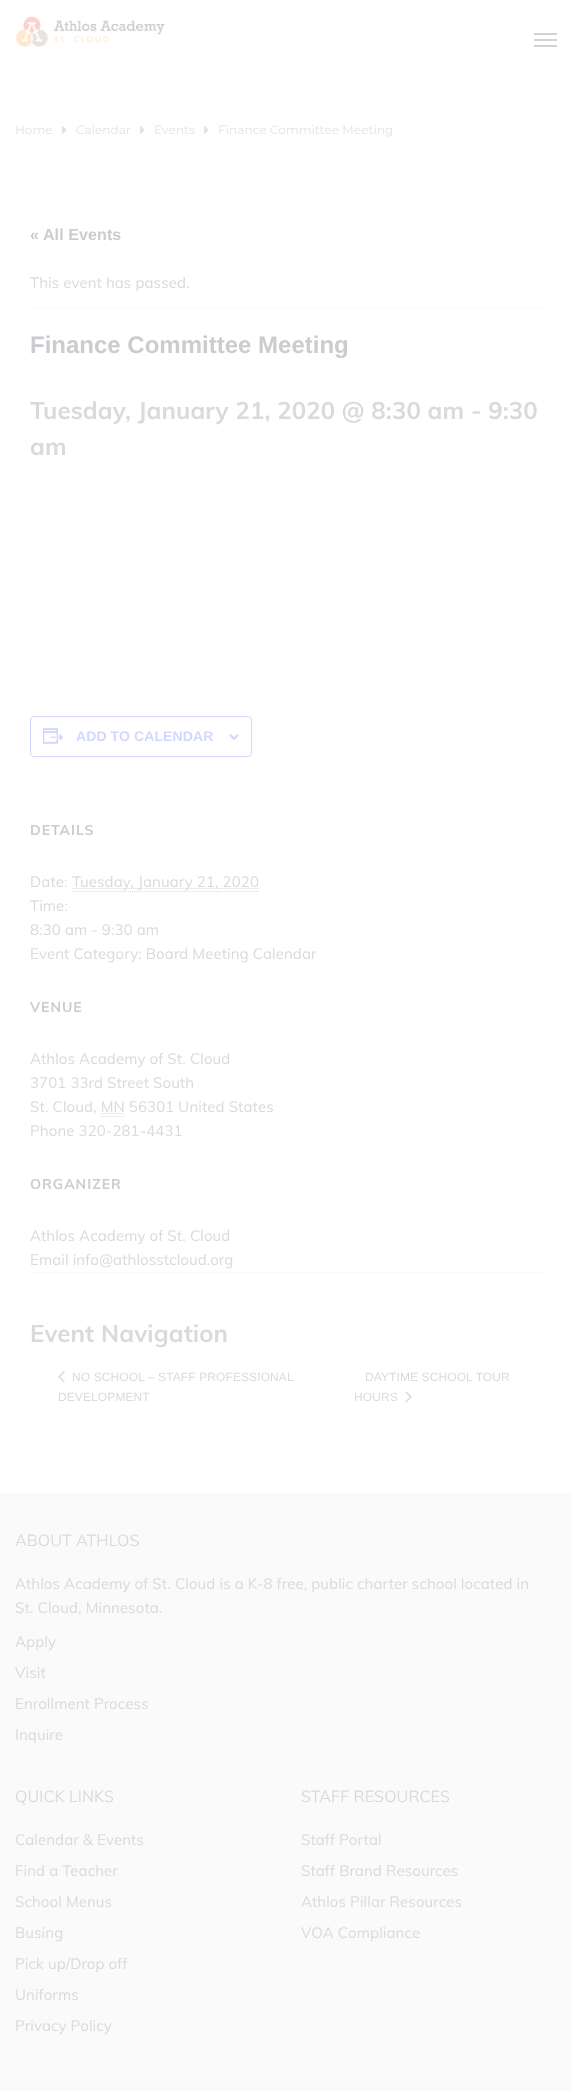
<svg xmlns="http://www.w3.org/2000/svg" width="572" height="2091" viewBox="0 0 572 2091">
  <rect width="100%" height="100%" fill="#ffffff"/>
  <image x="15" y="16" width="150" height="32" href="img1.png"/>
  <rect x="534" y="33" width="23" height="2" fill="#d2d2d2"/>
  <rect x="534" y="39" width="23" height="2" fill="#d2d2d2"/>
  <rect x="534" y="45" width="23" height="2" fill="#d2d2d2"/>
  <text x="15" y="134" font-family="Montserrat" font-size="12" font-weight="100" letter-spacing="0.1" fill="#e2e3e4">Home</text>
  <image x="62" y="126" width="5" height="8" href="img2.png"/>
  <text x="76" y="134" font-family="Montserrat" font-size="12" font-weight="100" letter-spacing="0.1" fill="#e2e3e4">Calendar</text>
  <image x="140" y="126" width="5" height="8" href="img2.png"/>
  <text x="154" y="134" font-family="Montserrat" font-size="12" font-weight="100" letter-spacing="0.1" fill="#e2e3e4">Events</text>
  <image x="204" y="126" width="5" height="8" href="img2.png"/>
  <text x="218" y="134" font-family="Montserrat" font-size="12" font-weight="100" letter-spacing="0.1" fill="#e2e3e4">Finance Committee Meeting</text>
  <text x="30" y="240" font-family="Liberation Sans" font-size="16" font-weight="bold" letter-spacing="0.1" fill="#cbcccf">« All Events</text>
  <rect x="30" y="307" width="512" height="1" fill="#f9f9f9"/>
  <text x="30" y="288" font-family="Muli" font-size="15" letter-spacing="0.1" fill="#dadada">This event has passed.</text>
  <text x="30" y="353" font-family="Liberation Sans" font-size="24" font-weight="bold" fill="#cbcccf">Finance Committee Meeting</text>
  <text x="30" y="419" font-family="Muli" font-size="24" font-weight="bold" letter-spacing="0.1" fill="#dadada">Tuesday, January 21, 2020 @ 8:30 am - 9:30</text>
  <text x="30" y="455" font-family="Muli" font-size="24" font-weight="bold" letter-spacing="0.1" fill="#dadada">am</text>
  <rect x="30.5" y="716.5" width="221" height="40" rx="3.5" fill="none" stroke="#d2d7ff"/>
  <image x="43" y="728" width="21" height="16" href="img3.png"/>
  <text x="76" y="741" font-family="Liberation Sans" font-size="14" font-weight="bold" letter-spacing="0.1" fill="#d2d7ff">ADD TO CALENDAR</text>
  <image x="229" y="734" width="10" height="6" href="img4.png"/>
  <text x="30" y="835" font-family="Muli" font-size="14" font-weight="bold" letter-spacing="1" fill="#cbcccf">DETAILS</text>
  <text x="30" y="887" font-family="Muli" font-size="15" letter-spacing="0.1" fill="#dadada">Date:</text>
  <path d="M71.5 888.5H258.5" fill="none" stroke="#dadada" stroke-dasharray="1 1"/>
  <text x="72" y="887" font-family="Muli" font-size="15" letter-spacing="0.1" fill="#dadada">Tuesday, January 21, 2020</text>
  <path d="M72 891.5H259" fill="none" stroke="#dadada" stroke-dasharray="1 1"/>
  <text x="30" y="911" font-family="Muli" font-size="15" letter-spacing="0.1" fill="#dadada">Time:</text>
  <text x="30" y="935" font-family="Muli" font-size="15" letter-spacing="0.1" fill="#dadada">8:30 am - 9:30 am</text>
  <text x="30" y="959" font-family="Muli" font-size="15" letter-spacing="0.1" fill="#dadada">Event Category: Board Meeting Calendar</text>
  <text x="30" y="1012" font-family="Muli" font-size="14" font-weight="bold" letter-spacing="1" fill="#cbcccf">VENUE</text>
  <text x="30" y="1064" font-family="Muli" font-size="15" letter-spacing="0.1" fill="#dadada">Athlos Academy of St. Cloud</text>
  <text x="30" y="1088" font-family="Muli" font-size="15" letter-spacing="0.1" fill="#dadada">3701 33rd Street South</text>
  <text x="30" y="1112" font-family="Muli" font-size="15" letter-spacing="0.1" fill="#dadada">St. Cloud, MN 56301 United States</text>
  <path d="M101 1116.5H125M100.5 1113.5H125" fill="none" stroke="#dadada" stroke-dasharray="1 1"/>
  <text x="30" y="1136" font-family="Muli" font-size="15" letter-spacing="0.1" fill="#dadada">Phone 320-281-4431</text>
  <text x="30" y="1189" font-family="Muli" font-size="14" font-weight="bold" letter-spacing="1" fill="#cbcccf">ORGANIZER</text>
  <text x="30" y="1241" font-family="Muli" font-size="15" letter-spacing="0.1" fill="#dadada">Athlos Academy of St. Cloud</text>
  <text x="30" y="1265" font-family="Muli" font-size="15" letter-spacing="0.1" fill="#dadada">Email info@athlosstcloud.org</text>
  <rect x="30" y="1272" width="512" height="1" fill="#f9f9f9"/>
  <text x="30" y="1342" font-family="Muli" font-size="24" font-weight="bold" letter-spacing="0.1" fill="#dadada">Event Navigation</text>
  <image x="58" y="1371" width="7" height="11" href="img5.png"/>
  <text x="72" y="1381" font-family="Liberation Sans" font-size="12" letter-spacing="0.1" fill="#dadada">NO SCHOOL – STAFF PROFESSIONAL</text>
  <text x="58" y="1401" font-family="Liberation Sans" font-size="12" letter-spacing="0.1" fill="#dadada">DEVELOPMENT</text>
  <text x="365" y="1381" font-family="Liberation Sans" font-size="12" letter-spacing="0.1" fill="#dadada">DAYTIME SCHOOL TOUR</text>
  <text x="354" y="1401" font-family="Liberation Sans" font-size="12" letter-spacing="0.1" fill="#dadada">HOURS</text>
  <image x="405" y="1391" width="7" height="12" href="img6.png"/>
  <rect x="0" y="1493" width="572" height="598" fill="#fafafa"/>
  <text x="15" y="1546" font-family="Muli" font-size="16" letter-spacing="0.1" fill="#dadada">ABOUT ATHLOS</text>
  <text x="15" y="1589" font-family="Muli" font-size="15" letter-spacing="0.1" fill="#dadada">Athlos Academy of St. Cloud is a K-8 free, public charter school located in</text>
  <text x="15" y="1613" font-family="Muli" font-size="15" letter-spacing="0.1" fill="#dadada">St. Cloud, Minnesota.</text>
  <text x="15" y="1647" font-family="Muli" font-size="15" letter-spacing="0.1" fill="#dadada">Apply</text>
  <text x="15" y="1678" font-family="Muli" font-size="15" letter-spacing="0.1" fill="#dadada">Visit</text>
  <text x="15" y="1709" font-family="Muli" font-size="15" letter-spacing="0.1" fill="#dadada">Enrollment Process</text>
  <text x="15" y="1740" font-family="Muli" font-size="15" letter-spacing="0.1" fill="#dadada">Inquire</text>
  <text x="15" y="1802" font-family="Muli" font-size="16" letter-spacing="0.1" fill="#dadada">QUICK LINKS</text>
  <text x="15" y="1845" font-family="Muli" font-size="15" letter-spacing="0.1" fill="#dadada">Calendar &amp; Events</text>
  <text x="15" y="1876" font-family="Muli" font-size="15" letter-spacing="0.1" fill="#dadada">Find a Teacher</text>
  <text x="15" y="1907" font-family="Muli" font-size="15" letter-spacing="0.1" fill="#dadada">School Menus</text>
  <text x="15" y="1938" font-family="Muli" font-size="15" letter-spacing="0.1" fill="#dadada">Busing</text>
  <text x="15" y="1969" font-family="Muli" font-size="15" letter-spacing="0.1" fill="#dadada">Pick up/Drop off</text>
  <text x="15" y="2000" font-family="Muli" font-size="15" letter-spacing="0.1" fill="#dadada">Uniforms</text>
  <text x="15" y="2031" font-family="Muli" font-size="15" letter-spacing="0.1" fill="#dadada">Privacy Policy</text>
  <text x="301" y="1802" font-family="Muli" font-size="16" letter-spacing="0.1" fill="#dadada">STAFF RESOURCES</text>
  <text x="301" y="1845" font-family="Muli" font-size="15" letter-spacing="0.1" fill="#dadada">Staff Portal</text>
  <text x="301" y="1876" font-family="Muli" font-size="15" letter-spacing="0.1" fill="#dadada">Staff Brand Resources</text>
  <text x="301" y="1907" font-family="Muli" font-size="15" letter-spacing="0.1" fill="#dadada">Athlos Pillar Resources</text>
  <text x="301" y="1938" font-family="Muli" font-size="15" letter-spacing="0.1" fill="#dadada">VOA Compliance</text>
</svg>
